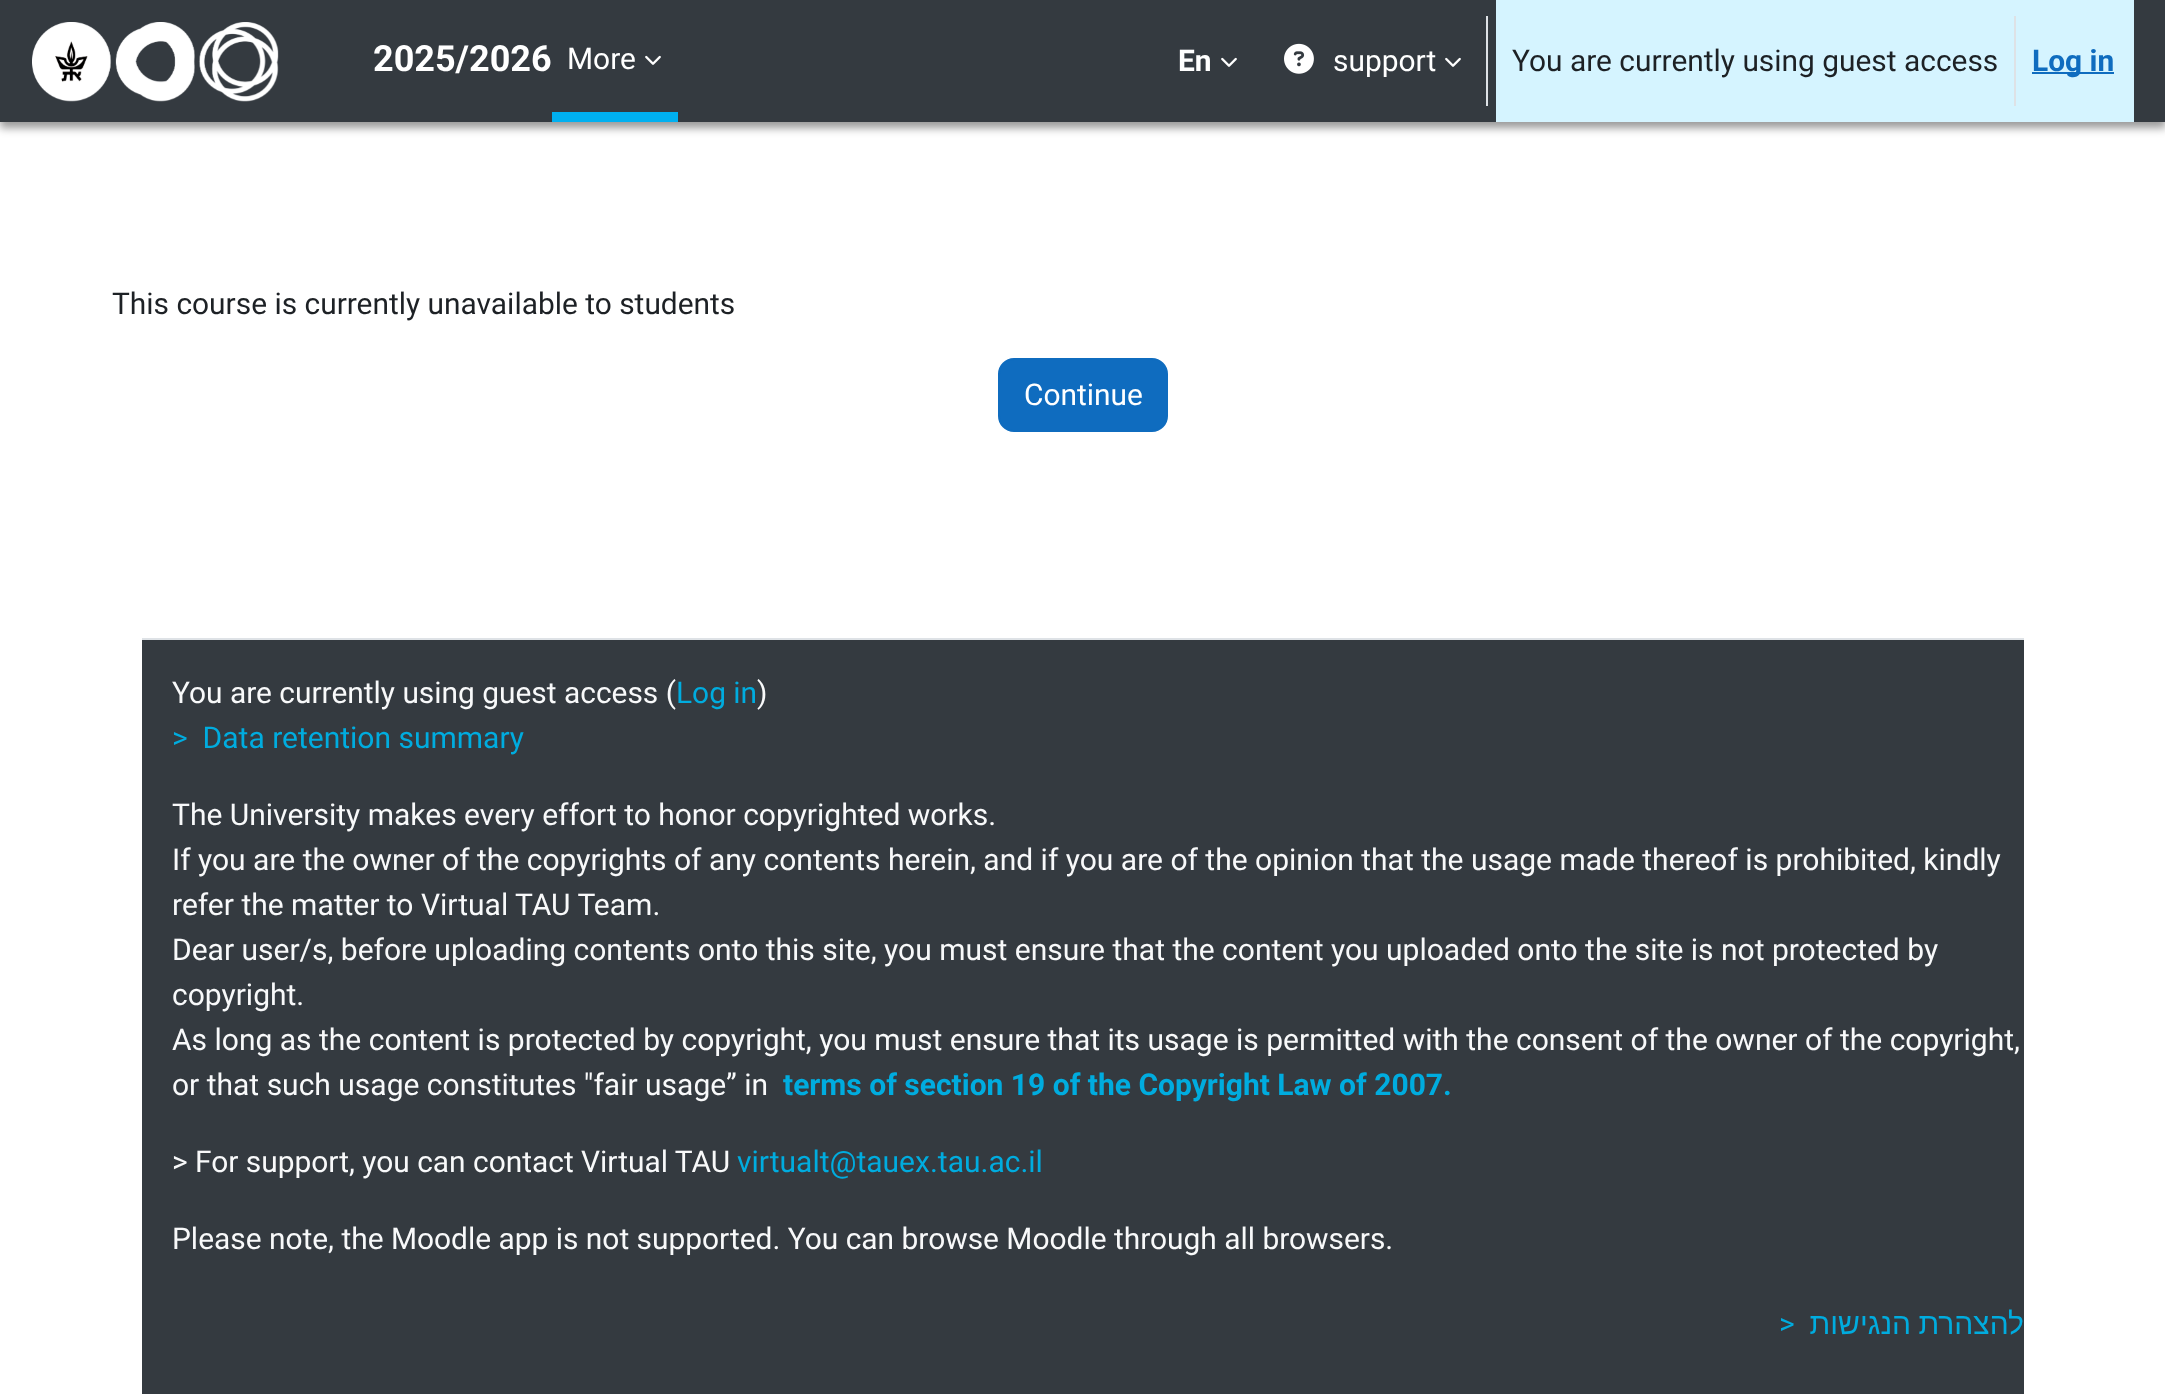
<svg xmlns="http://www.w3.org/2000/svg" width="2165" height="1394" viewBox="0 0 2165 1394">
  <defs>
    <filter id="blur1" x="-50%" y="-200%" width="200%" height="500%"><feGaussianBlur stdDeviation="4"/></filter>
  </defs>
  <rect width="100%" height="100%" fill="#ffffff"/>
  <rect x="0" y="6" width="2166" height="122" fill="#000000" fill-opacity="0.4" filter="url(#blur1)"/>
  <rect x="0" y="0" width="2165" height="122" fill="#343a40"/>
  <image x="32" y="22" width="247" height="80" href="img1.png"/>
  <text x="373" y="71" font-family="Roboto" font-size="36" font-weight="bold" fill="#ffffff">2025/2026</text>
  <rect x="552" y="112" width="126" height="10" fill="#00b0f0"/>
  <text x="567" y="69" font-family="Roboto" font-size="29.9" fill="#ffffff">More</text>
  <image x="645" y="55" width="16" height="10" href="img2.png"/>
  <text x="1178" y="71" font-family="Roboto" font-size="29.9" font-weight="bold" fill="#ffffff">En</text>
  <image x="1221" y="57" width="16" height="10" href="img2.png"/>
  <image x="1284" y="43" width="30" height="31" href="img3.png"/>
  <text x="1333" y="71" font-family="Roboto" font-size="29.9" fill="#ffffff">support</text>
  <image x="1445" y="57" width="16" height="10" href="img2.png"/>
  <rect x="1486" y="16" width="2" height="90" fill="#dee2e6"/>
  <rect x="1496" y="0" width="638" height="122" fill="#d5f4ff"/>
  <text x="1512" y="71" font-family="Roboto" font-size="29.9" fill="#1d2125">You are currently using guest access</text>
  <rect x="2014" y="16" width="2" height="90" fill="#dee2e6"/>
  <rect x="2032" y="72" width="82" height="2" fill="#0f6cbf"/>
  <text x="2032" y="71" font-family="Roboto" font-size="29.9" font-weight="bold" fill="#0f6cbf">Log in</text>
  <text x="112" y="314" font-family="Roboto" font-size="29.9" fill="#1d2125">This course is currently unavailable to students</text>
  <rect x="999" y="359" width="168" height="72" rx="15" fill="#0f6cbf" stroke="#0f6cbf" stroke-width="2"/>
  <text x="1024" y="405" font-family="Roboto" font-size="29.9" fill="#ffffff">Continue</text>
  <rect x="142" y="640" width="1882" height="754" fill="#343a40"/>
  <rect x="142" y="638" width="1882" height="2" fill="#dee2e6"/>
  <text x="172" y="703" font-family="Roboto" font-size="29.9" fill="#f8f9fa">You are currently using guest access (</text>
  <text x="676" y="703" font-family="Roboto" font-size="29.9" fill="#00acdf">Log in</text>
  <text x="757" y="703" font-family="Roboto" font-size="29.9" fill="#f8f9fa">)</text>
  <text x="172" y="748" font-family="Roboto" font-size="30" fill="#00acdf" xml:space="preserve">&gt;  Data retention summary</text>
  <text x="172" y="825" font-family="Roboto" font-size="30" fill="#f8f9fa">The University makes every effort to honor copyrighted works.</text>
  <text x="172" y="870" font-family="Roboto" font-size="30" fill="#f8f9fa">If you are the owner of the copyrights of any contents herein, and if you are of the opinion that the usage made thereof is prohibited, kindly</text>
  <text x="172" y="915" font-family="Roboto" font-size="30" fill="#f8f9fa">refer the matter to Virtual TAU Team.</text>
  <text x="172" y="960" font-family="Roboto" font-size="30" fill="#f8f9fa">Dear user/s, before uploading contents onto this site, you must ensure that the content you uploaded onto the site is not protected by</text>
  <text x="172" y="1005" font-family="Roboto" font-size="30" fill="#f8f9fa">copyright.</text>
  <text x="172" y="1050" font-family="Roboto" font-size="30" fill="#f8f9fa">As long as the content is protected by copyright, you must ensure that its usage is permitted with the consent of the owner of the copyright,</text>
  <text x="172" y="1095" font-family="Roboto" font-size="30" fill="#f8f9fa">or that such usage constitutes "fair usage” in</text>
  <text x="783" y="1095" font-family="Roboto" font-size="30" font-weight="bold" fill="#00acdf">terms of section 19 of the Copyright Law of 2007.</text>
  <text x="172" y="1172" font-family="Roboto" font-size="29.9" fill="#f8f9fa">&gt; For support, you can contact Virtual TAU</text>
  <text x="737" y="1172" font-family="Roboto" font-size="30" fill="#00acdf">virtualt@tauex.tau.ac.il</text>
  <text x="172" y="1249" font-family="Roboto" font-size="29.9" fill="#f8f9fa">Please note, the Moodle app is not supported. You can browse Moodle through all browsers.</text>
  <text x="1779" y="1334" font-family="Roboto" font-size="30" fill="#00acdf">&gt;</text>
  <text x="2024" y="1334" word-spacing="-1" font-family="Liberation Sans" font-size="30" direction="rtl" fill="#00acdf">להצהרת הנגישות</text>
</svg>
